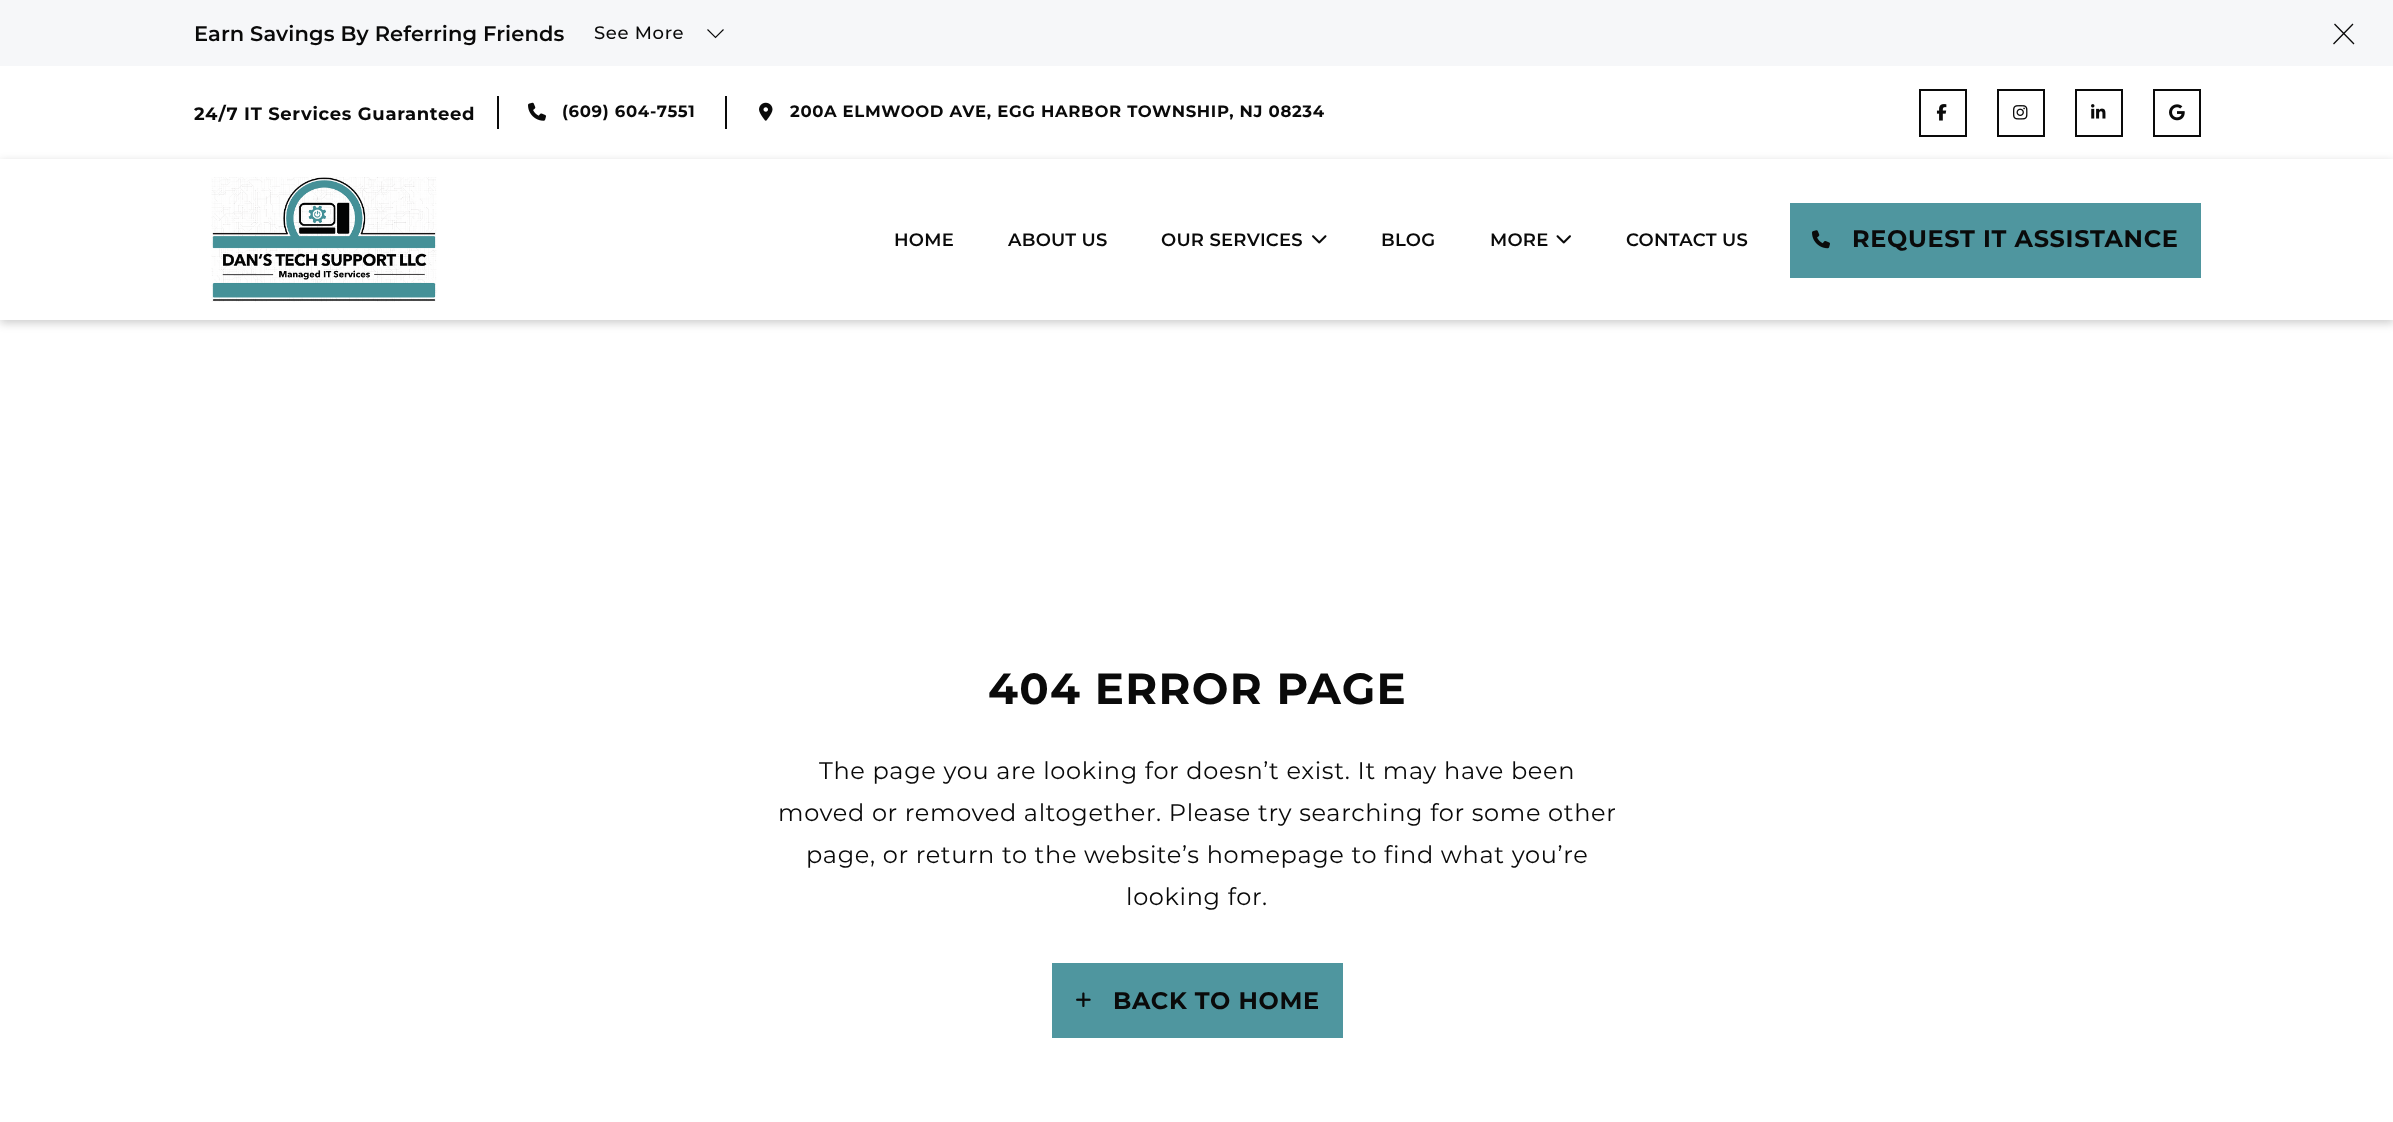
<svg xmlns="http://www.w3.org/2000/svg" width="2393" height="1122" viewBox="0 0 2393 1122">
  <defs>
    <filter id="blur1" x="-50%" y="-200%" width="200%" height="500%"><feGaussianBlur stdDeviation="5"/></filter>
  </defs>
  <rect width="100%" height="100%" fill="#ffffff"/>
  <rect x="0" y="0" width="2393" height="66" fill="#f6f7f9"/>
  <text x="194" y="41" font-family="Montserrat" font-size="21" font-weight="600" letter-spacing="0.1" fill="#0a0a0a">Earn Savings By Referring Friends</text>
  <text x="594" y="39" font-family="Montserrat" font-size="18" font-weight="500" letter-spacing="0.67" fill="#0a0a0a">See More</text>
  <path d="M723.5 29.5L715.5 37.5L707.5 29.5" fill="none" stroke="#0a0a0a" stroke-width="1.1"/>
  <path d="M2353 24L2333.5 44M2334.5 24L2354 44" fill="none" stroke="#0a0a0a" stroke-width="1.3"/>
  <text x="194" y="120" font-family="Montserrat" font-size="18" font-weight="bold" letter-spacing="0.67" fill="#0a0a0a">24/7 IT Services Guaranteed</text>
  <rect x="497" y="96" width="2" height="33" fill="#0a0a0a"/>
  <image x="528" y="102" width="18" height="19" href="img1.png"/>
  <text x="562" y="117" font-family="Montserrat" font-size="16.5" font-weight="bold" letter-spacing="0.67" fill="#0a0a0a">(609) 604-7551</text>
  <rect x="725" y="96" width="2" height="33" fill="#0a0a0a"/>
  <image x="759" y="102" width="14" height="19" href="img2.png"/>
  <text x="790" y="117" font-family="Montserrat" font-size="16.5" font-weight="bold" letter-spacing="0.67" fill="#0a0a0a">200A ELMWOOD AVE, EGG HARBOR TOWNSHIP, NJ 08234</text>
  <rect x="1920" y="90" width="46" height="46" fill="none" stroke="#0a0a0a" stroke-width="2"/>
  <image x="1936" y="104" width="11" height="17" href="img3.png"/>
  <rect x="1998" y="90" width="46" height="46" fill="none" stroke="#0a0a0a" stroke-width="2"/>
  <image x="2013" y="105" width="15" height="15" href="img4.png"/>
  <rect x="2076" y="90" width="46" height="46" fill="none" stroke="#0a0a0a" stroke-width="2"/>
  <image x="2091" y="104" width="15" height="15" href="img5.png"/>
  <rect x="2154" y="90" width="46" height="46" fill="none" stroke="#0a0a0a" stroke-width="2"/>
  <image x="2169" y="104" width="16" height="17" href="img6.png"/>
  <rect x="0" y="162" width="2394" height="161" fill="#000000" fill-opacity="0.2" filter="url(#blur1)"/>
  <rect x="0" y="159" width="2393" height="161" fill="#ffffff"/>
  <image x="211" y="177" width="226" height="125" href="img7.png"/>
  <text x="894" y="246" font-family="Montserrat" font-size="18" font-weight="600" letter-spacing="0.25" fill="#0a0a0a">HOME</text>
  <text x="1008" y="246" font-family="Montserrat" font-size="18" font-weight="600" letter-spacing="0.25" fill="#0a0a0a">ABOUT US</text>
  <text x="1161" y="246" font-family="Montserrat" font-size="18" font-weight="600" letter-spacing="0.25" fill="#0a0a0a">OUR SERVICES</text>
  <image x="1312" y="235" width="15" height="9" href="img8.png"/>
  <text x="1381" y="246" font-family="Montserrat" font-size="18" font-weight="600" letter-spacing="0.25" fill="#0a0a0a">BLOG</text>
  <text x="1490" y="246" font-family="Montserrat" font-size="18" font-weight="600" letter-spacing="0.25" fill="#0a0a0a">MORE</text>
  <image x="1556" y="235" width="15" height="9" href="img9.png"/>
  <text x="1626" y="246" font-family="Montserrat" font-size="18" font-weight="600" letter-spacing="0.25" fill="#0a0a0a">CONTACT US</text>
  <rect x="1790" y="203" width="411" height="75" fill="#4f969f"/>
  <image x="1812" y="230" width="18" height="19" href="img10.png"/>
  <text x="1852" y="247" font-family="Montserrat" font-size="24" font-weight="bold" letter-spacing="0.67" fill="#0a0a0a">REQUEST IT ASSISTANCE</text>
  <text x="988" y="704" font-family="Montserrat" font-size="43.5" font-weight="bold" letter-spacing="1.25" fill="#0a0a0a">404 ERROR PAGE</text>
  <text x="819" y="779" font-family="Montserrat" font-size="24" letter-spacing="0.67" fill="#0a0a0a">The page you are looking for doesn’t exist. It may have been</text>
  <text x="778" y="821" font-family="Montserrat" font-size="24" letter-spacing="0.67" fill="#0a0a0a">moved or removed altogether. Please try searching for some other</text>
  <text x="806" y="863" font-family="Montserrat" font-size="24" letter-spacing="0.67" fill="#0a0a0a">page, or return to the website’s homepage to find what you’re</text>
  <text x="1126" y="905" font-family="Montserrat" font-size="24" letter-spacing="0.67" fill="#0a0a0a">looking for.</text>
  <rect x="1052" y="963" width="291" height="75" fill="#4f969f"/>
  <image x="1076" y="992" width="15" height="15" href="img11.png"/>
  <text x="1113" y="1009" font-family="Montserrat" font-size="24" font-weight="bold" letter-spacing="0.67" fill="#0a0a0a">BACK TO HOME</text>
</svg>
